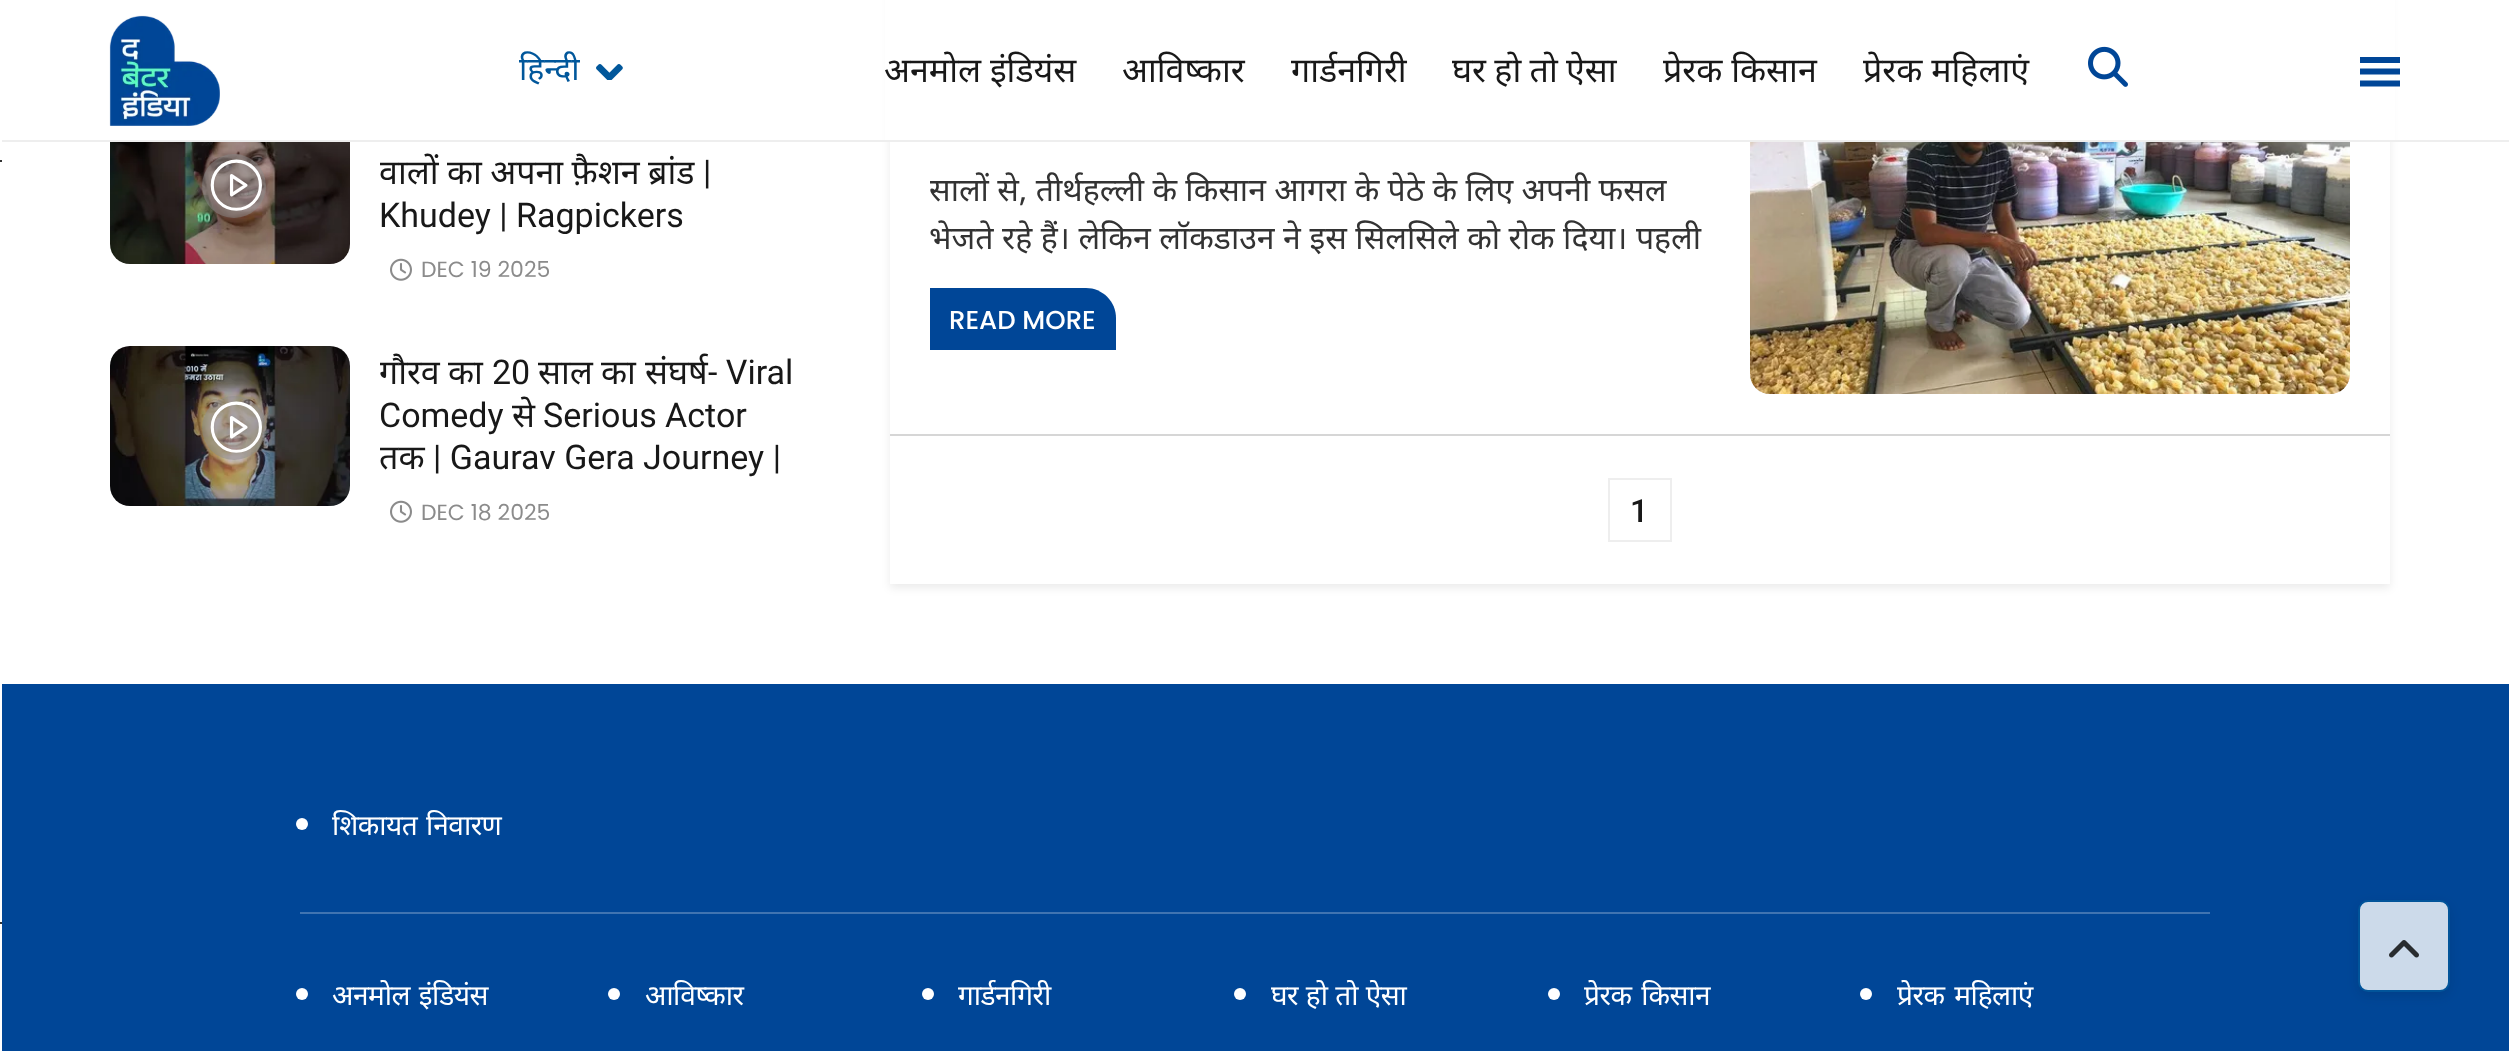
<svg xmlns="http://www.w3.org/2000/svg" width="2509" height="1051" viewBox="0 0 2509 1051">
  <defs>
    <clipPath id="clip1"><path d="M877 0H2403V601H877ZM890-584H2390V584H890Z" clip-rule="evenodd"/></clipPath>
    <filter id="blur1" x="-50%" y="-200%" width="200%" height="500%"><feGaussianBlur stdDeviation="4"/></filter>
    <clipPath id="clip2"><rect x="380" y="104" width="420" height="134"/></clipPath>
    <clipPath id="clip3"><rect x="380" y="346" width="420" height="134"/></clipPath>
    <clipPath id="clip4"><rect x="930" y="166" width="780" height="96"/></clipPath>
    <filter id="blur2" x="-50%" y="-200%" width="200%" height="500%"><feGaussianBlur stdDeviation="6"/></filter>
  </defs>
  <rect width="100%" height="100%" fill="#ffffff"/>
  <g clip-path="url(#clip1)">
    <rect x="890" y="-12" width="1500" height="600" fill="#000000" fill-opacity="0.08" filter="url(#blur1)"/>
  </g>
  <rect x="885" y="0" width="1510" height="140" fill="#ffffff"/>
  <rect x="0" y="140" width="2509" height="2" fill="#eeeeee"/>
  <image x="109" y="15" width="111" height="111" href="img1.png"/>
  <text x="519" y="80" font-family="Noto Sans" font-size="32" fill="#01579b">हिन्दी</text>
  <image x="596" y="64" width="27" height="16" href="img2.png"/>
  <text x="884" y="82" font-family="Noto Sans" font-size="34" fill="#181818">अनमोल इंडियंस</text>
  <text x="1122" y="82" font-family="Noto Sans" font-size="34" fill="#181818">आविष्कार</text>
  <text x="1291" y="82" font-family="Noto Sans" font-size="34" fill="#181818">गार्डनगिरी</text>
  <text x="1452" y="82" word-spacing="-0.5" font-family="Noto Sans" font-size="34" fill="#181818">घर हो तो ऐसा</text>
  <text x="1663" y="82" font-family="Noto Sans" font-size="34" fill="#181818">प्रेरक किसान</text>
  <text x="1863" y="82" font-family="Noto Sans" font-size="34" fill="#181818">प्रेरक महिलाएं</text>
  <image x="2088" y="46" width="40" height="41" href="img3.png"/>
  <rect x="2360" y="57" width="40" height="6" fill="#004697"/>
  <path d="M2360 83.5H2400M2360 71.5H2400" fill="none" stroke="#004697" stroke-width="6"/>
  <rect x="0" y="140" width="2" height="2" fill="#ffffff"/>
  <rect x="0" y="160" width="2" height="2" fill="#333333"/>
  <rect x="0" y="922" width="2" height="2" fill="#333333"/>
  <image x="110" y="142" width="240" height="122" href="img4.png"/>
  <circle cx="234" cy="186" r="32" fill="#8a8a8a" fill-opacity="0.5"/>
  <image x="210" y="159" width="52" height="52" href="img5.png"/>
  <g clip-path="url(#clip2)">
    <text x="379" y="184" word-spacing="-0.5" font-family="Noto Sans" font-size="34" fill="#181818">वालों का अपना फ़ैशन ब्रांड</text>
  </g>
  <text x="703" y="184" font-family="Roboto" font-size="34" fill="#181818">|</text>
  <text x="379" y="227" font-family="Roboto" font-size="34" fill="#181818">Khudey | Ragpickers</text>
  <image x="390" y="258" width="22" height="23" href="img6.png"/>
  <text x="421" y="277" font-family="Poppins" font-size="22" fill="#8b8b8b">DEC 19 2025</text>
  <image x="110" y="346" width="240" height="160" href="img7.png"/>
  <circle cx="234" cy="428" r="32" fill="#8a8a8a" fill-opacity="0.5"/>
  <image x="210" y="401" width="52" height="52" href="img8.png"/>
  <g clip-path="url(#clip3)">
    <text x="379" y="384" font-family="Noto Sans" font-size="34" fill="#181818">गौरव</text>
  </g>
  <text x="448" y="384" font-family="Noto Sans" font-size="34" fill="#181818">का</text>
  <text x="492" y="384" font-family="Roboto" font-size="34" fill="#181818">20</text>
  <text x="538" y="384" font-family="Noto Sans" font-size="34" fill="#181818">साल</text>
  <text x="601" y="384" font-family="Noto Sans" font-size="34" fill="#181818">का</text>
  <text x="645" y="384" font-family="Noto Sans" font-size="34" fill="#181818">संघर्ष</text>
  <text x="708" y="384" font-family="Roboto" font-size="34" fill="#181818">- Viral</text>
  <text x="379" y="427" font-family="Roboto" font-size="34" fill="#181818">Comedy</text>
  <text x="512" y="427" font-family="Noto Sans" font-size="34" fill="#181818">से</text>
  <text x="543" y="427" font-family="Roboto" font-size="34" fill="#181818">Serious Actor</text>
  <g clip-path="url(#clip3)">
    <text x="379" y="469" font-family="Noto Sans" font-size="34" fill="#181818">तक</text>
  </g>
  <text x="433" y="469" font-family="Roboto" font-size="34" fill="#181818">| Gaurav Gera Journey |</text>
  <image x="390" y="500" width="22" height="23" href="img6.png"/>
  <text x="421" y="520" font-family="Poppins" font-size="22" fill="#8b8b8b">DEC 18 2025</text>
  <rect x="890" y="434" width="1500" height="2" fill="#d6d6d6"/>
  <g clip-path="url(#clip4)">
    <text x="929" y="201" font-family="Noto Sans" font-size="32" fill="#333333">सालों से, तीर्थहल्ली के किसान आगरा के पेठे के लिए अपनी फसल</text>
    <text x="929" y="249" word-spacing="0.25" font-family="Noto Sans" font-size="32" fill="#333333">भेजते रहे हैं। लेकिन लॉकडाउन ने इस सिलसिले को रोक दिया। पहली</text>
  </g>
  <image x="1750" y="142" width="600" height="252" href="img9.png"/>
  <path d="M930 288H1086C1102.5 288 1116 301.5 1116 318V350H930Z" fill="#004697"/>
  <text x="949" y="329" font-family="Poppins" font-size="26" font-weight="500" fill="#ffffff">READ MORE</text>
  <rect x="1609" y="479" width="62" height="62" fill="none" stroke="#eeeeee" stroke-width="2"/>
  <text x="1630" y="522" font-family="Roboto" font-size="32" font-weight="500" fill="#181818">1</text>
  <rect x="2" y="684" width="2507" height="367" fill="#004697"/>
  <circle cx="302" cy="824" r="6" fill="#ffffff"/>
  <text x="332" y="835" word-spacing="2" font-family="Noto Sans" font-size="28" letter-spacing="-0.5" fill="#ffffff">शिकायत निवारण</text>
  <rect x="300" y="912" width="1910" height="2" fill="#4074b1"/>
  <circle cx="302" cy="994" r="6" fill="#ffffff"/>
  <text x="332" y="1005" word-spacing="2" font-family="Noto Sans" font-size="28" letter-spacing="-0.5" fill="#ffffff">अनमोल इंडियंस</text>
  <circle cx="614" cy="994" r="6" fill="#ffffff"/>
  <text x="645" y="1005" font-family="Noto Sans" font-size="28" letter-spacing="-0.5" fill="#ffffff">आविष्कार</text>
  <circle cx="928" cy="994" r="6" fill="#ffffff"/>
  <text x="958" y="1005" font-family="Noto Sans" font-size="28" letter-spacing="-0.5" fill="#ffffff">गार्डनगिरी</text>
  <circle cx="1240" cy="994" r="6" fill="#ffffff"/>
  <text x="1271" y="1005" word-spacing="1" font-family="Noto Sans" font-size="28" letter-spacing="-0.5" fill="#ffffff">घर हो तो ऐसा</text>
  <circle cx="1554" cy="994" r="6" fill="#ffffff"/>
  <text x="1584" y="1005" word-spacing="3" font-family="Noto Sans" font-size="28" letter-spacing="-0.5" fill="#ffffff">प्रेरक किसान</text>
  <circle cx="1866" cy="994" r="6" fill="#ffffff"/>
  <text x="1897" y="1005" word-spacing="3" font-family="Noto Sans" font-size="28" letter-spacing="-0.5" fill="#ffffff">प्रेरक महिलाएं</text>
  <rect x="2358" y="904" width="92" height="92" rx="10" fill="#000e1e" fill-opacity="0.1" filter="url(#blur2)"/>
  <rect x="2359" y="901" width="90" height="90" rx="9" fill="#ccdaea" stroke="#01549a" stroke-width="2"/>
  <image x="2389" y="940" width="30" height="18" href="img10.png"/>
</svg>
